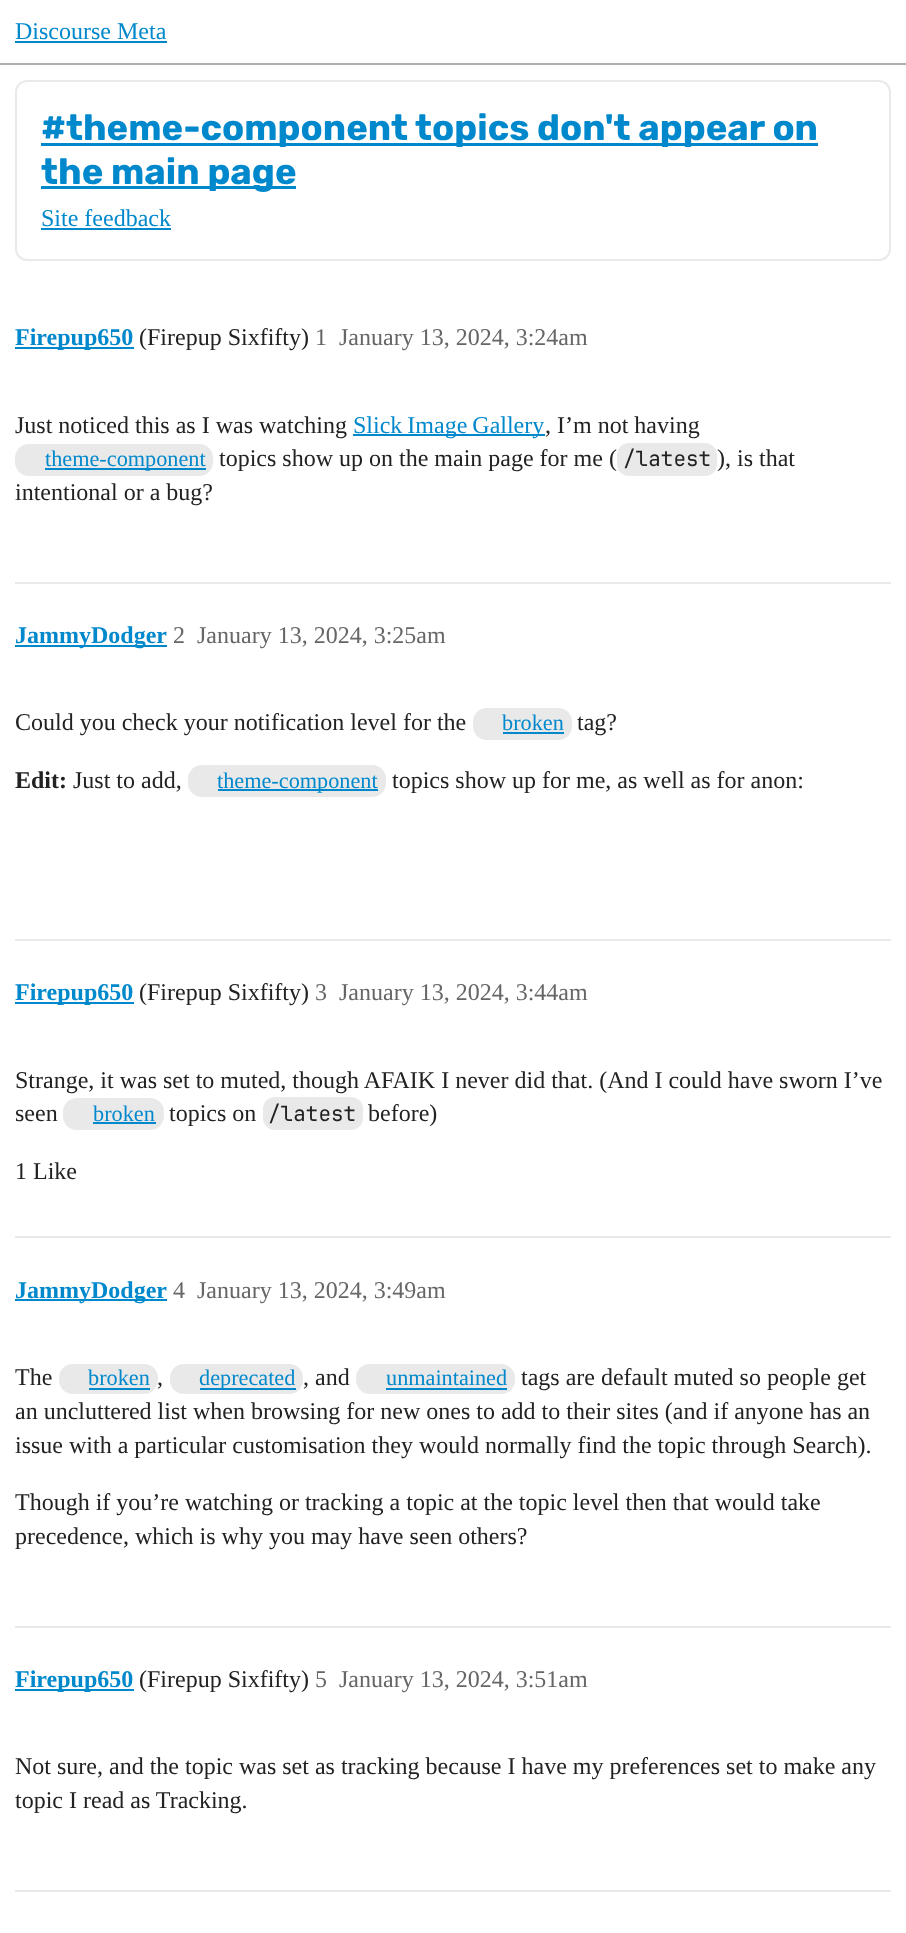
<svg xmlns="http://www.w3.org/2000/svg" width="906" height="1933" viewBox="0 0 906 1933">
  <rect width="100%" height="100%" fill="#ffffff"/>
  <rect x="0" y="63" width="906" height="2" fill="#afafaf"/>
  <text x="15" y="39" font-family="Liberation Serif" font-size="24" fill="#0088cc">Discourse Meta</text>
  <rect x="15" y="41" width="152" height="2" fill="#0088cc"/>
  <rect x="16" y="81" width="874" height="179" rx="11" fill="none" stroke="#e9e9e9" stroke-width="2"/>
  <rect x="41" y="143" width="777" height="3" fill="#0088cc"/>
  <text x="41" y="140" font-family="Rubik" font-size="36.4" font-weight="bold" fill="#0088cc">#theme-component topics don't appear on</text>
  <rect x="41" y="186" width="255" height="3" fill="#0088cc"/>
  <text x="41" y="184" font-family="Rubik" font-size="36.4" font-weight="bold" fill="#0088cc">the main page</text>
  <text x="41" y="226" font-family="Liberation Serif" font-size="24" fill="#0088cc">Site feedback</text>
  <rect x="41" y="228" width="130" height="2" fill="#0088cc"/>
  <rect x="15" y="347" width="119" height="2" fill="#0088cc"/>
  <text x="15" y="345" font-family="Liberation Serif" font-size="24" font-weight="bold" fill="#0088cc">Firepup650</text>
  <text x="139" y="345" font-family="Liberation Serif" font-size="24" fill="#222222">(Firepup Sixfifty)</text>
  <text x="315" y="345" font-family="Liberation Serif" font-size="24" fill="#666666">1</text>
  <text x="339" y="345" font-family="Liberation Serif" font-size="24" fill="#666666">January 13, 2024, 3:24am</text>
  <text x="15" y="433" font-family="Liberation Serif" font-size="24" fill="#222222">Just noticed this as I was watching</text>
  <rect x="353" y="434" width="192" height="2" fill="#0088cc"/>
  <text x="353" y="433" word-spacing="-1" font-family="Liberation Serif" font-size="24" fill="#0088cc">Slick Image Gallery</text>
  <text x="545" y="433" font-family="Liberation Serif" font-size="24" fill="#222222">, I’m not having</text>
  <rect x="15" y="444" width="198" height="32" rx="14" fill="#e9e9e9"/>
  <rect x="45" y="468" width="161" height="2" fill="#0088cc"/>
  <text x="45" y="466" font-family="Liberation Serif" font-size="22.25" fill="#0088cc">theme-component</text>
  <text x="219" y="466" font-family="Liberation Serif" font-size="24" fill="#222222">topics show up on the main page for me (</text>
  <rect x="617" y="443" width="100" height="33" rx="12" fill="#e9e9e9"/>
  <text x="623" y="466" font-family="JetBrains Mono" font-size="21" fill="#222222">/latest</text>
  <text x="717" y="466" font-family="Liberation Serif" font-size="24" fill="#222222">), is that</text>
  <text x="15" y="500" font-family="Liberation Serif" font-size="24" fill="#222222">intentional or a bug?</text>
  <rect x="15" y="582" width="876" height="2" fill="#e9e9e9"/>
  <rect x="15" y="645" width="152" height="2" fill="#0088cc"/>
  <text x="15" y="643" font-family="Liberation Serif" font-size="24" font-weight="bold" fill="#0088cc">JammyDodger</text>
  <text x="173" y="643" font-family="Liberation Serif" font-size="24" fill="#666666">2</text>
  <text x="197" y="643" font-family="Liberation Serif" font-size="24" fill="#666666">January 13, 2024, 3:25am</text>
  <text x="15" y="730" font-family="Liberation Serif" font-size="24" fill="#222222">Could you check your notification level for the</text>
  <rect x="473" y="708" width="99" height="32" rx="14" fill="#e9e9e9"/>
  <text x="502" y="730" font-family="Liberation Serif" font-size="22.25" fill="#0088cc">broken</text>
  <rect x="503" y="732" width="61" height="2" fill="#0088cc"/>
  <text x="577" y="730" font-family="Liberation Serif" font-size="24" fill="#222222">tag?</text>
  <text x="15" y="788" font-family="Liberation Serif" font-size="24" font-weight="bold" fill="#222222">Edit:</text>
  <text x="73" y="788" font-family="Liberation Serif" font-size="24" fill="#222222">Just to add,</text>
  <rect x="188" y="765" width="198" height="32" rx="14" fill="#e9e9e9"/>
  <rect x="218" y="789" width="160" height="2" fill="#0088cc"/>
  <text x="217" y="788" font-family="Liberation Serif" font-size="22.25" fill="#0088cc">theme-component</text>
  <text x="392" y="788" font-family="Liberation Serif" font-size="24" fill="#222222">topics show up for me, as well as for anon:</text>
  <rect x="15" y="939" width="876" height="2" fill="#e9e9e9"/>
  <rect x="15" y="1002" width="119" height="2" fill="#0088cc"/>
  <text x="15" y="1000" font-family="Liberation Serif" font-size="24" font-weight="bold" fill="#0088cc">Firepup650</text>
  <text x="139" y="1000" font-family="Liberation Serif" font-size="24" fill="#222222">(Firepup Sixfifty)</text>
  <text x="315" y="1000" font-family="Liberation Serif" font-size="24" fill="#666666">3</text>
  <text x="339" y="1000" font-family="Liberation Serif" font-size="24" fill="#666666">January 13, 2024, 3:44am</text>
  <text x="15" y="1088" font-family="Liberation Serif" font-size="24" fill="#222222">Strange, it was set to muted, though AFAIK I never did that. (And I could have sworn I’ve</text>
  <text x="15" y="1121" font-family="Liberation Serif" font-size="24" fill="#222222">seen</text>
  <rect x="63" y="1098" width="101" height="32" rx="14" fill="#e9e9e9"/>
  <text x="93" y="1121" font-family="Liberation Serif" font-size="22.25" fill="#0088cc">broken</text>
  <rect x="93" y="1122" width="63" height="2" fill="#0088cc"/>
  <text x="169" y="1121" font-family="Liberation Serif" font-size="24" fill="#222222">topics on</text>
  <rect x="263" y="1097" width="100" height="33" rx="12" fill="#e9e9e9"/>
  <text x="268" y="1121" font-family="JetBrains Mono" font-size="21" fill="#222222">/latest</text>
  <text x="368" y="1121" font-family="Liberation Serif" font-size="24" fill="#222222">before)</text>
  <text x="15" y="1179" font-family="Liberation Serif" font-size="24" fill="#222222">1 Like</text>
  <rect x="15" y="1236" width="876" height="2" fill="#e9e9e9"/>
  <rect x="15" y="1299" width="152" height="2" fill="#0088cc"/>
  <text x="15" y="1298" font-family="Liberation Serif" font-size="24" font-weight="bold" fill="#0088cc">JammyDodger</text>
  <text x="173" y="1298" font-family="Liberation Serif" font-size="24" fill="#666666">4</text>
  <text x="197" y="1298" font-family="Liberation Serif" font-size="24" fill="#666666">January 13, 2024, 3:49am</text>
  <text x="15" y="1385" font-family="Liberation Serif" font-size="24" fill="#222222">The</text>
  <rect x="59" y="1364" width="99" height="30" rx="14" fill="#e9e9e9"/>
  <text x="88" y="1385" font-family="Liberation Serif" font-size="22.25" fill="#0088cc">broken</text>
  <rect x="89" y="1388" width="61" height="2" fill="#0088cc"/>
  <text x="157" y="1385" font-family="Liberation Serif" font-size="24" fill="#222222">,</text>
  <rect x="170" y="1364" width="133" height="30" rx="14" fill="#e9e9e9"/>
  <rect x="200" y="1388" width="96" height="2" fill="#0088cc"/>
  <text x="199" y="1385" font-family="Liberation Serif" font-size="22.25" fill="#0088cc">deprecated</text>
  <text x="303" y="1385" font-family="Liberation Serif" font-size="24" fill="#222222">, and</text>
  <rect x="356" y="1364" width="159" height="30" rx="14" fill="#e9e9e9"/>
  <text x="386" y="1385" font-family="Liberation Serif" font-size="22.25" fill="#0088cc">unmaintained</text>
  <rect x="386" y="1388" width="121" height="2" fill="#0088cc"/>
  <text x="521" y="1385" font-family="Liberation Serif" font-size="24" fill="#222222">tags are default muted so people get</text>
  <text x="15" y="1419" font-family="Liberation Serif" font-size="24" fill="#222222">an uncluttered list when browsing for new ones to add to their sites (and if anyone has an</text>
  <text x="15" y="1453" font-family="Liberation Serif" font-size="24" fill="#222222">issue with a particular customisation they would normally find the topic through Search).</text>
  <text x="15" y="1510" font-family="Liberation Serif" font-size="24" fill="#222222">Though if you’re watching or tracking a topic at the topic level then that would take</text>
  <text x="15" y="1544" font-family="Liberation Serif" font-size="24" fill="#222222">precedence, which is why you may have seen others?</text>
  <rect x="15" y="1626" width="876" height="2" fill="#e9e9e9"/>
  <rect x="15" y="1689" width="119" height="2" fill="#0088cc"/>
  <text x="15" y="1687" font-family="Liberation Serif" font-size="24" font-weight="bold" fill="#0088cc">Firepup650</text>
  <text x="139" y="1687" font-family="Liberation Serif" font-size="24" fill="#222222">(Firepup Sixfifty)</text>
  <text x="315" y="1687" font-family="Liberation Serif" font-size="24" fill="#666666">5</text>
  <text x="339" y="1687" font-family="Liberation Serif" font-size="24" fill="#666666">January 13, 2024, 3:51am</text>
  <text x="15" y="1774" font-family="Liberation Serif" font-size="24" fill="#222222">Not sure, and the topic was set as tracking because I have my preferences set to make any</text>
  <text x="15" y="1808" font-family="Liberation Serif" font-size="24" fill="#222222">topic I read as Tracking.</text>
  <rect x="15" y="1890" width="876" height="2" fill="#e9e9e9"/>
</svg>
